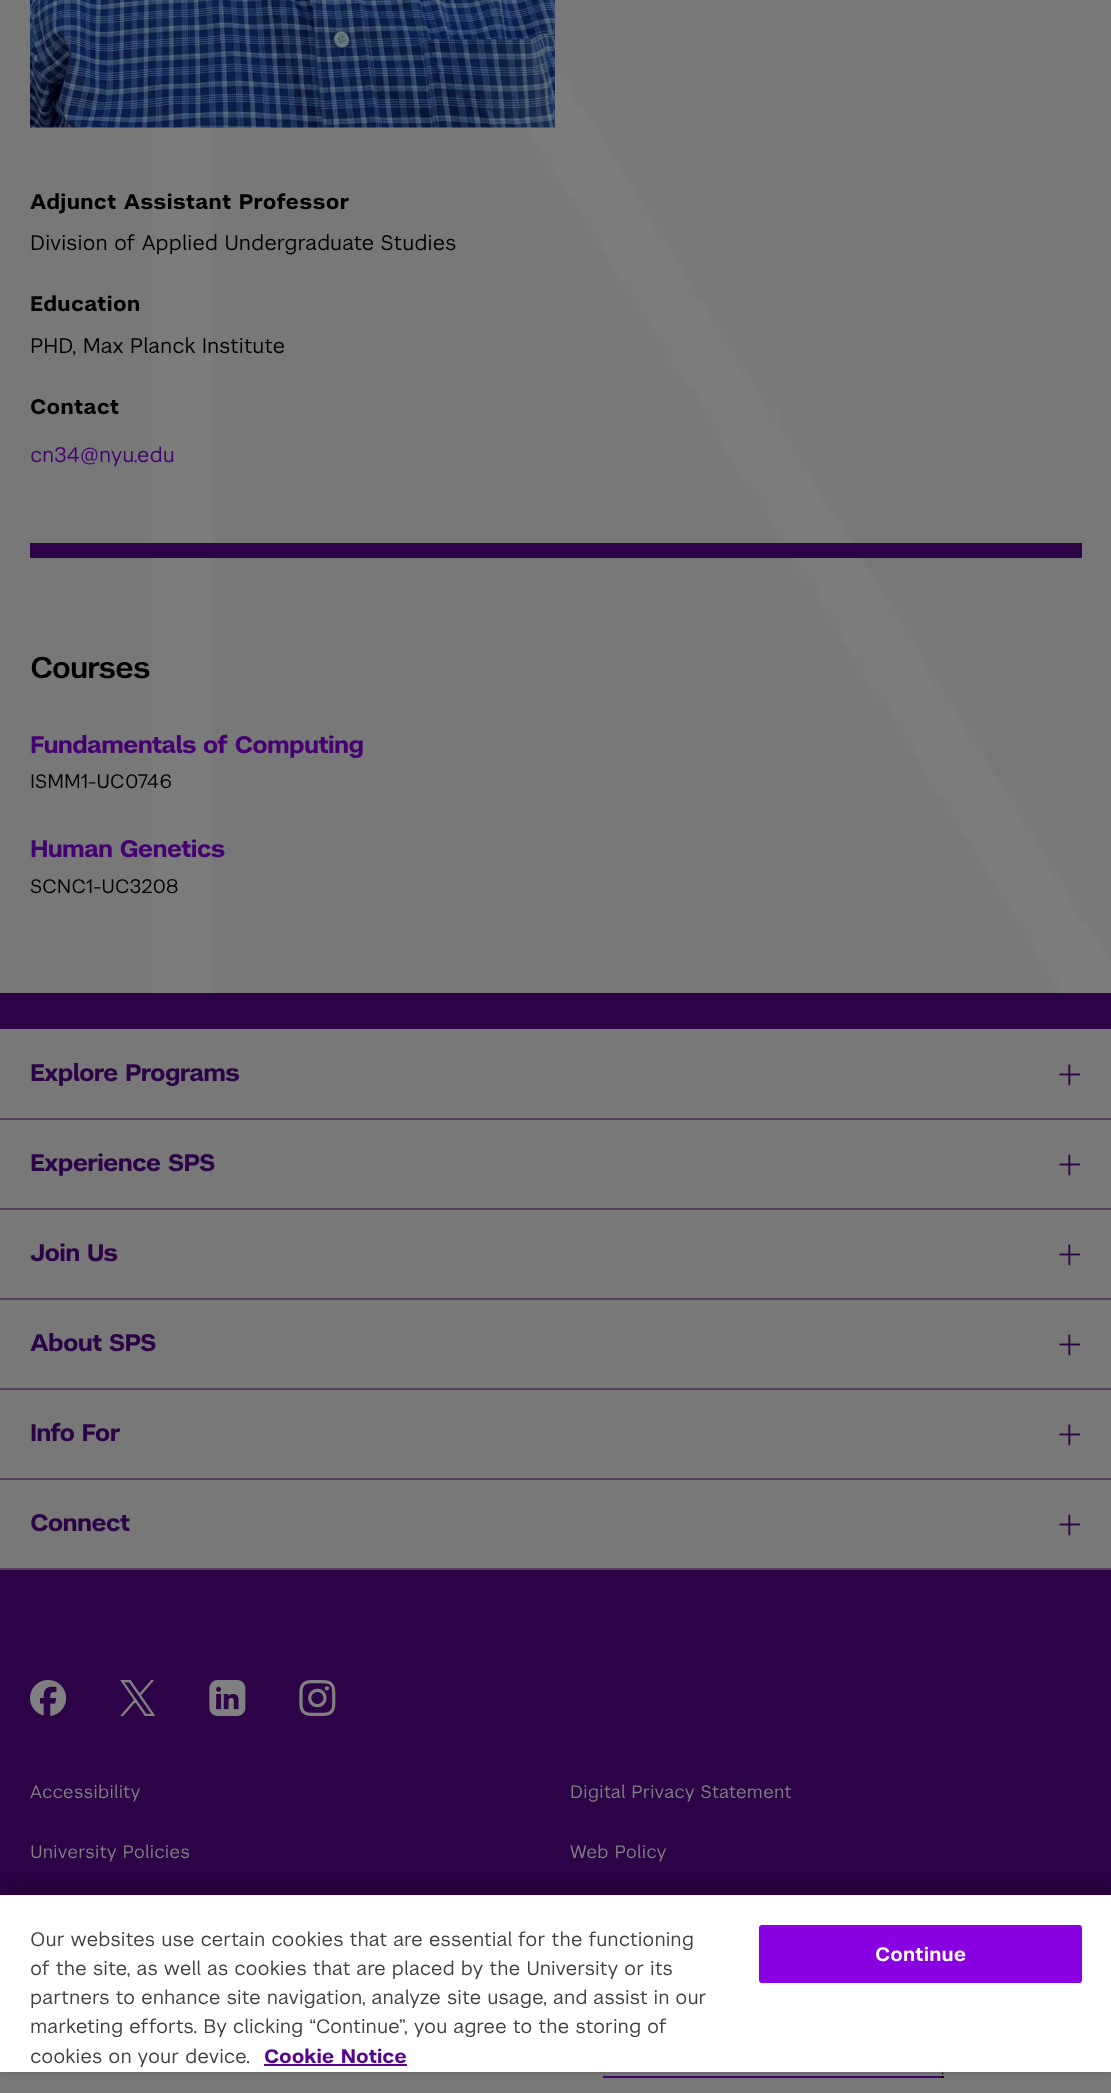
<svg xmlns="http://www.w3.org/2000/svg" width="1111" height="2093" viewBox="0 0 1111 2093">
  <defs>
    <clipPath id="clip1"><rect x="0" y="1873" width="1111" height="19"/></clipPath>
    <filter id="blur1" x="-50%" y="-200%" width="200%" height="500%"><feGaussianBlur stdDeviation="11"/></filter>
    <filter id="blur2" x="-50%" y="-200%" width="200%" height="500%"><feGaussianBlur stdDeviation="3"/></filter>
  </defs>
  <rect width="100%" height="100%" fill="#ffffff"/>
  <image x="0" y="0" width="1111" height="993" href="img1.png"/>
  <rect x="30" y="543" width="1052" height="15" fill="#2c0346"/>
  <image x="30" y="0" width="525" height="128" href="img2.png"/>
  <text x="30" y="209" font-family="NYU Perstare" font-size="21" font-weight="bold" letter-spacing="0.4" fill="#000000">Adjunct Assistant Professor</text>
  <text x="30" y="250" font-family="NYU Perstare" font-size="21" fill="#000000">Division of Applied Undergraduate Studies</text>
  <text x="30" y="311" font-family="NYU Perstare" font-size="21" font-weight="bold" letter-spacing="0.4" fill="#000000">Education</text>
  <text x="30" y="353" font-family="NYU Perstare" font-size="21" fill="#000000">PHD, Max Planck Institute</text>
  <text x="30" y="414" font-family="NYU Perstare" font-size="21" font-weight="bold" letter-spacing="0.4" fill="#000000">Contact</text>
  <text x="30" y="462" font-family="NYU Perstare" font-size="21" fill="#450071">cn34@nyu.edu</text>
  <text x="30" y="678" font-family="NYU Perstare" font-size="30" font-weight="500" letter-spacing="-1" fill="#000000">Courses</text>
  <text x="30" y="753" font-family="NYU Perstare" font-size="24" font-weight="bold" letter-spacing="-0.75" fill="#450071">Fundamentals of Computing</text>
  <text x="30" y="788" font-family="NYU Perstare" font-size="19.5" fill="#000000">ISMM1-UC0746</text>
  <text x="30" y="857" font-family="NYU Perstare" font-size="24" font-weight="bold" letter-spacing="-0.75" fill="#450071">Human Genetics</text>
  <text x="30" y="893" font-family="NYU Perstare" font-size="19.5" fill="#000000">SCNC1-UC3208</text>
  <rect x="0" y="1029" width="1111" height="1064" fill="#787878"/>
  <rect x="0" y="993" width="1111" height="36" fill="#2c0346"/>
  <rect x="0" y="1118" width="1111" height="2" fill="#564163"/>
  <text x="30" y="1081" font-family="NYU Perstare" font-size="24" font-weight="bold" letter-spacing="-0.75" fill="#2c0346">Explore Programs</text>
  <image x="1059" y="1064" width="22" height="22" href="img3.png"/>
  <rect x="0" y="1208" width="1111" height="2" fill="#564163"/>
  <text x="30" y="1171" font-family="NYU Perstare" font-size="24" font-weight="bold" letter-spacing="-0.75" fill="#2c0346">Experience SPS</text>
  <image x="1059" y="1154" width="22" height="22" href="img3.png"/>
  <rect x="0" y="1298" width="1111" height="2" fill="#564163"/>
  <text x="30" y="1261" font-family="NYU Perstare" font-size="24" font-weight="bold" letter-spacing="-0.75" fill="#2c0346">Join Us</text>
  <image x="1059" y="1244" width="22" height="22" href="img3.png"/>
  <rect x="0" y="1388" width="1111" height="2" fill="#564163"/>
  <text x="30" y="1351" font-family="NYU Perstare" font-size="24" font-weight="bold" letter-spacing="-0.75" fill="#2c0346">About SPS</text>
  <image x="1059" y="1334" width="22" height="22" href="img3.png"/>
  <rect x="0" y="1478" width="1111" height="2" fill="#564163"/>
  <text x="30" y="1441" font-family="NYU Perstare" font-size="24" font-weight="bold" letter-spacing="-0.75" fill="#2c0346">Info For</text>
  <image x="1059" y="1424" width="22" height="22" href="img3.png"/>
  <rect x="0" y="1568" width="1111" height="2" fill="#564163"/>
  <text x="30" y="1531" font-family="NYU Perstare" font-size="24" font-weight="bold" letter-spacing="-0.75" fill="#2c0346">Connect</text>
  <image x="1059" y="1514" width="22" height="22" href="img3.png"/>
  <rect x="0" y="1570" width="1111" height="325" fill="#2c0346"/>
  <image x="30" y="1680" width="37" height="36" href="img4.png"/>
  <image x="120" y="1680" width="36" height="36" href="img5.png"/>
  <image x="209" y="1680" width="37" height="36" href="img6.png"/>
  <image x="299" y="1680" width="37" height="36" href="img7.png"/>
  <text x="30" y="1798" font-family="NYU Perstare" font-size="18" letter-spacing="0.2" fill="#808080">Accessibility</text>
  <text x="570" y="1798" font-family="NYU Perstare" font-size="18" letter-spacing="0.2" fill="#808080">Digital Privacy Statement</text>
  <text x="30" y="1858" font-family="NYU Perstare" font-size="18" letter-spacing="0.2" fill="#808080">University Policies</text>
  <text x="570" y="1858" font-family="NYU Perstare" font-size="18" letter-spacing="0.2" fill="#808080">Web Policy</text>
  <text x="941" y="2074" font-family="NYU Perstare" font-size="15" fill="#000000">.</text>
  <rect x="941" y="2076" width="3" height="2" fill="#000000"/>
  <rect x="603" y="2076" width="338" height="2" fill="#450071"/>
  <g clip-path="url(#clip1)">
    <rect x="0" y="1892" width="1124" height="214" fill="#000000" fill-opacity="0.45" filter="url(#blur1)"/>
  </g>
  <rect x="0" y="1895" width="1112" height="177" fill="#000000" fill-opacity="0.2" filter="url(#blur2)"/>
  <rect x="0" y="1895" width="1111" height="177" fill="#ffffff"/>
  <text x="30" y="1946" font-family="NYU Perstare" font-size="19.5" fill="#404040">Our websites use certain cookies that are essential for the functioning</text>
  <text x="30" y="1975" font-family="NYU Perstare" font-size="19.5" fill="#404040">of the site, as well as cookies that are placed by the University or its</text>
  <text x="30" y="2004" font-family="NYU Perstare" font-size="19.5" fill="#404040">partners to enhance site navigation, analyze site usage, and assist in our</text>
  <text x="30" y="2033" font-family="NYU Perstare" font-size="19.5" fill="#404040">marketing efforts. By clicking “Continue”, you agree to the storing of</text>
  <text x="30" y="2063" font-family="NYU Perstare" font-size="19.5" fill="#404040">cookies on your device.</text>
  <text x="264" y="2063" font-family="NYU Perstare" font-size="19.5" font-weight="bold" fill="#57068c">Cookie Notice</text>
  <rect x="264" y="2064" width="143" height="2" fill="#57068c"/>
  <rect x="760" y="1926" width="321" height="56" rx="2" fill="#8900e1" stroke="#8900e1" stroke-width="2"/>
  <text x="875" y="1961" font-family="NYU Perstare" font-size="19.5" font-weight="600" letter-spacing="0.25" fill="#ffffff">Continue</text>
</svg>
